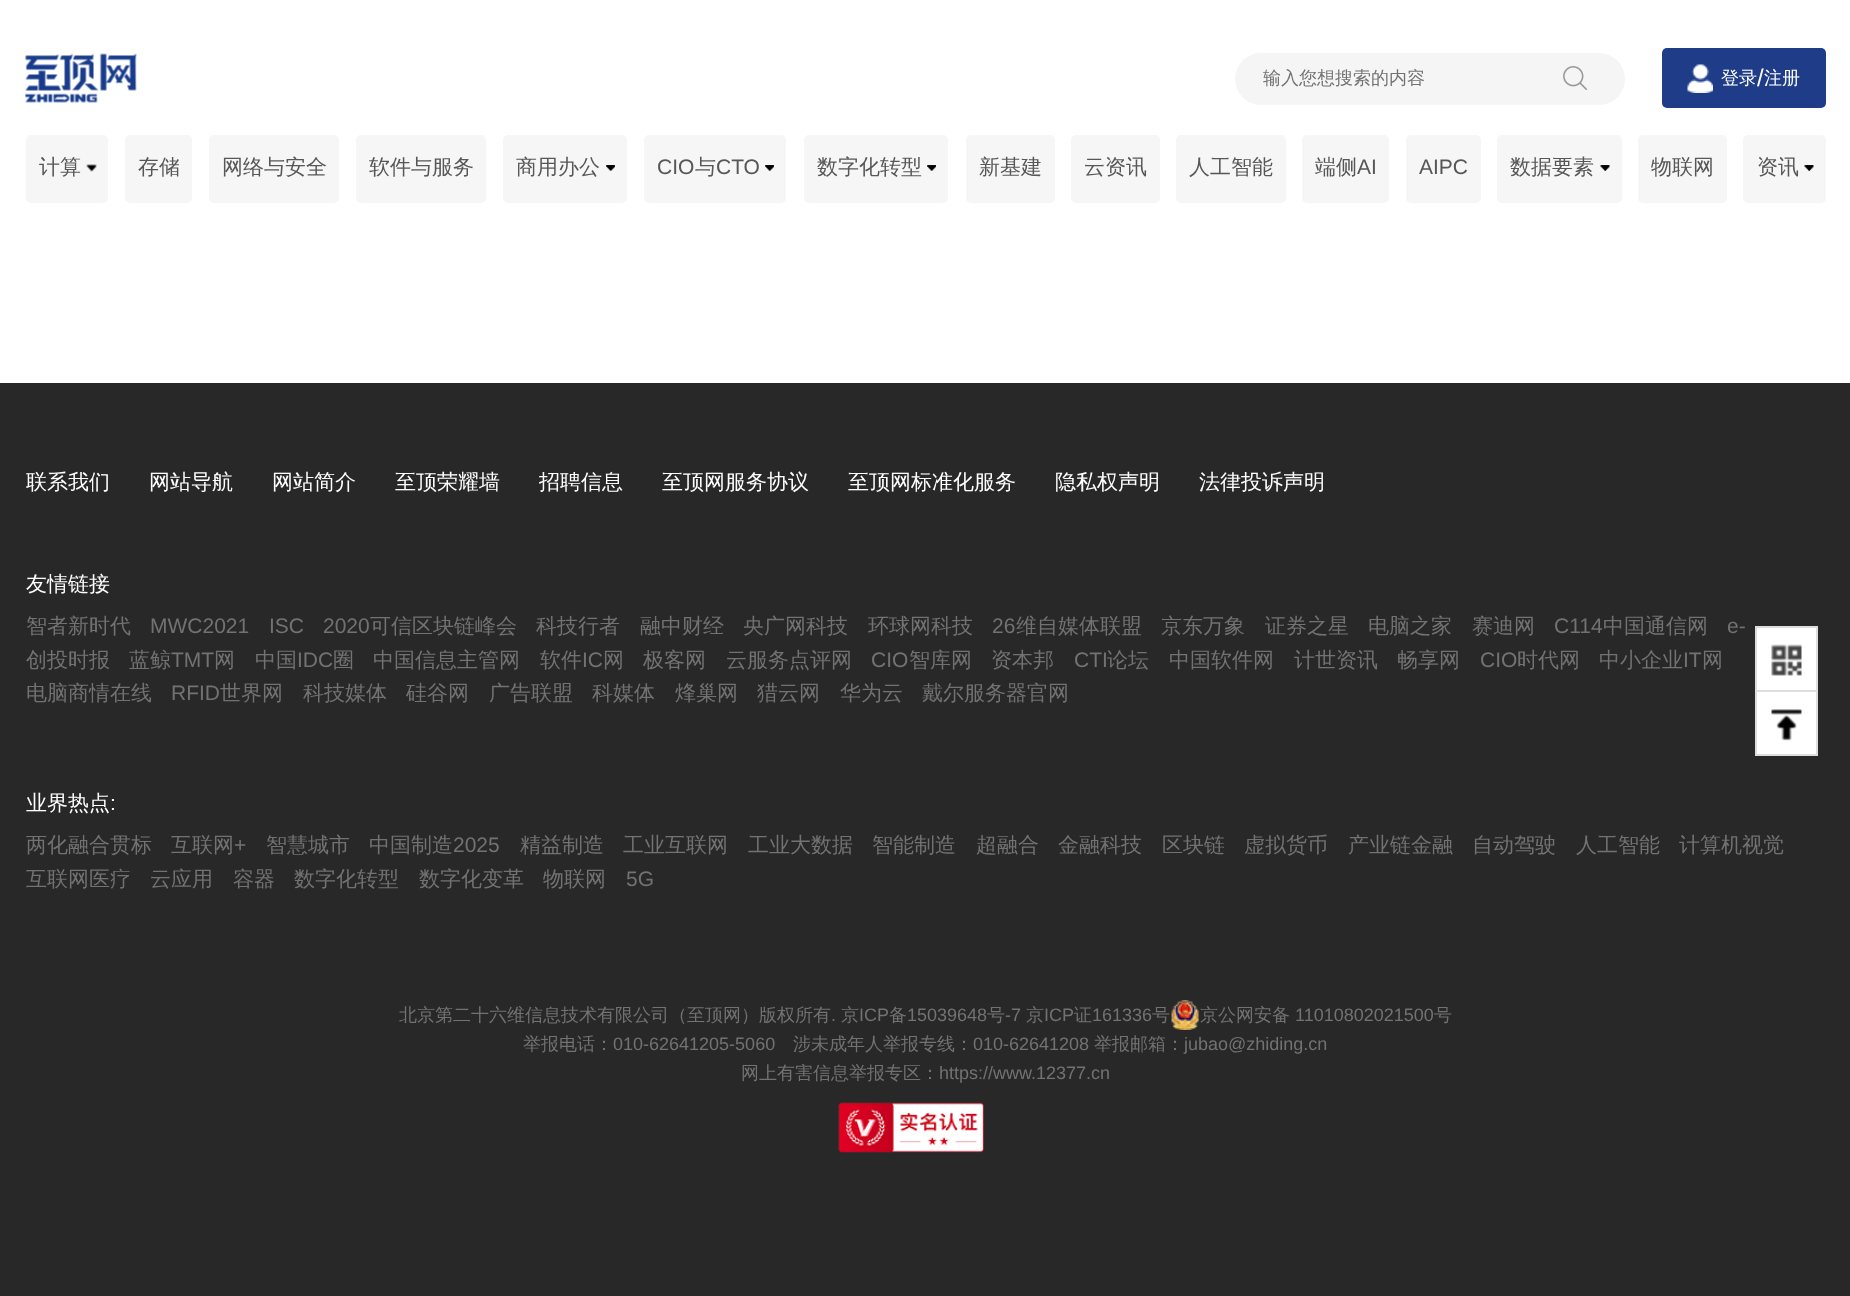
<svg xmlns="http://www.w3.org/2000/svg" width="1850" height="1296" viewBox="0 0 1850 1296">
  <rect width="100%" height="100%" fill="#ffffff"/>
  <image x="25" y="53" width="112" height="50" href="img1.png"/>
  <rect x="1235" y="53" width="390" height="52" rx="26" fill="#f5f5f5"/>
  <text x="1263" y="84" font-family="WenQuanYi Zen Hei" font-size="18" font-weight="500" fill="#727272">输入您想搜索的内容</text>
  <image x="1563" y="66" width="24" height="24" href="img2.png"/>
  <rect x="1662" y="48" width="164" height="60" rx="5" fill="#1e3c87"/>
  <image x="1687" y="64" width="26" height="29" href="img3.png"/>
  <text x="1721" y="84" font-family="WenQuanYi Zen Hei" font-size="18" font-weight="500" fill="#ffffff">登录</text>
  <text x="1757" y="86" font-family="Liberation Sans" font-size="24" fill="#ffffff">/</text>
  <text x="1764" y="84" font-family="WenQuanYi Zen Hei" font-size="18" font-weight="500" fill="#ffffff">注册</text>
  <rect x="26" y="135" width="82" height="68" rx="5" fill="#f6f6f6"/>
  <text x="39" y="174" font-family="WenQuanYi Zen Hei" font-size="21" font-weight="500" fill="#575757">计算</text>
  <image x="86" y="164" width="11" height="8" href="img4.png"/>
  <rect x="125" y="135" width="67" height="68" rx="5" fill="#f6f6f6"/>
  <text x="138" y="174" font-family="WenQuanYi Zen Hei" font-size="21" font-weight="500" fill="#575757">存储</text>
  <rect x="209" y="135" width="130" height="68" rx="5" fill="#f6f6f6"/>
  <text x="222" y="174" font-family="WenQuanYi Zen Hei" font-size="21" font-weight="500" fill="#575757">网络与安全</text>
  <rect x="356" y="135" width="130" height="68" rx="5" fill="#f6f6f6"/>
  <text x="369" y="174" font-family="WenQuanYi Zen Hei" font-size="21" font-weight="500" fill="#575757">软件与服务</text>
  <rect x="503" y="135" width="124" height="68" rx="5" fill="#f6f6f6"/>
  <text x="516" y="174" font-family="WenQuanYi Zen Hei" font-size="21" font-weight="500" fill="#575757">商用办公</text>
  <image x="606" y="165" width="9" height="6" href="img5.png"/>
  <rect x="644" y="135" width="142" height="68" rx="5" fill="#f6f6f6"/>
  <text x="657" y="174" font-family="Liberation Sans" font-size="21" fill="#575757">CIO</text>
  <text x="695" y="174" font-family="WenQuanYi Zen Hei" font-size="21" font-weight="500" fill="#575757">与</text>
  <text x="716" y="174" font-family="Liberation Sans" font-size="21" fill="#575757">CTO</text>
  <image x="765" y="165" width="9" height="6" href="img6.png"/>
  <rect x="804" y="135" width="144" height="68" rx="5" fill="#f6f6f6"/>
  <text x="817" y="174" font-family="WenQuanYi Zen Hei" font-size="21" font-weight="500" fill="#575757">数字化转型</text>
  <image x="927" y="165" width="9" height="6" href="img5.png"/>
  <rect x="966" y="135" width="89" height="68" rx="5" fill="#f6f6f6"/>
  <text x="979" y="174" font-family="WenQuanYi Zen Hei" font-size="21" font-weight="500" fill="#575757">新基建</text>
  <rect x="1071" y="135" width="89" height="68" rx="5" fill="#f6f6f6"/>
  <text x="1084" y="174" font-family="WenQuanYi Zen Hei" font-size="21" font-weight="500" fill="#575757">云资讯</text>
  <rect x="1176" y="135" width="110" height="68" rx="5" fill="#f6f6f6"/>
  <text x="1189" y="174" font-family="WenQuanYi Zen Hei" font-size="21" font-weight="500" fill="#575757">人工智能</text>
  <rect x="1302" y="135" width="87" height="68" rx="5" fill="#f6f6f6"/>
  <text x="1315" y="174" font-family="WenQuanYi Zen Hei" font-size="21" font-weight="500" fill="#575757">端侧</text>
  <text x="1357" y="174" font-family="Liberation Sans" font-size="21" fill="#575757">AI</text>
  <rect x="1406" y="135" width="75" height="68" rx="5" fill="#f6f6f6"/>
  <text x="1419" y="174" font-family="Liberation Sans" font-size="21" fill="#575757">AIPC</text>
  <rect x="1497" y="135" width="125" height="68" rx="5" fill="#f6f6f6"/>
  <text x="1510" y="174" font-family="WenQuanYi Zen Hei" font-size="21" font-weight="500" fill="#575757">数据要素</text>
  <image x="1600" y="165" width="10" height="6" href="img7.png"/>
  <rect x="1638" y="135" width="89" height="68" rx="5" fill="#f6f6f6"/>
  <text x="1651" y="174" font-family="WenQuanYi Zen Hei" font-size="21" font-weight="500" fill="#575757">物联网</text>
  <rect x="1743" y="135" width="83" height="68" rx="5" fill="#f6f6f6"/>
  <text x="1757" y="174" font-family="WenQuanYi Zen Hei" font-size="21" font-weight="500" fill="#575757">资讯</text>
  <image x="1804" y="165" width="10" height="6" href="img7.png"/>
  <rect x="0" y="383" width="1850" height="913" fill="#282828"/>
  <text x="26" y="489" font-family="WenQuanYi Zen Hei" font-size="21" font-weight="500" fill="#ffffff">联系我们</text>
  <text x="149" y="489" font-family="WenQuanYi Zen Hei" font-size="21" font-weight="500" fill="#ffffff">网站导航</text>
  <text x="272" y="489" font-family="WenQuanYi Zen Hei" font-size="21" font-weight="500" fill="#ffffff">网站简介</text>
  <text x="395" y="489" font-family="WenQuanYi Zen Hei" font-size="21" font-weight="500" fill="#ffffff">至顶荣耀墙</text>
  <text x="539" y="489" font-family="WenQuanYi Zen Hei" font-size="21" font-weight="500" fill="#ffffff">招聘信息</text>
  <text x="662" y="489" font-family="WenQuanYi Zen Hei" font-size="21" font-weight="500" fill="#ffffff">至顶网服务协议</text>
  <text x="848" y="489" font-family="WenQuanYi Zen Hei" font-size="21" font-weight="500" fill="#ffffff">至顶网标准化服务</text>
  <text x="1055" y="489" font-family="WenQuanYi Zen Hei" font-size="21" font-weight="500" fill="#ffffff">隐私权声明</text>
  <text x="1199" y="489" font-family="WenQuanYi Zen Hei" font-size="21" font-weight="500" fill="#ffffff">法律投诉声明</text>
  <text x="26" y="591" font-family="WenQuanYi Zen Hei" font-size="21" font-weight="500" fill="#ffffff">友情链接</text>
  <text x="26" y="633" font-family="WenQuanYi Zen Hei" font-size="21" font-weight="500" fill="#727272">智者新时代</text>
  <text x="150" y="633" font-family="Liberation Sans" font-size="21" fill="#727272">MWC2021</text>
  <text x="269" y="633" font-family="Liberation Sans" font-size="21" fill="#727272">ISC</text>
  <text x="323" y="633" font-family="Liberation Sans" font-size="21" fill="#727272">2020</text>
  <text x="370" y="633" font-family="WenQuanYi Zen Hei" font-size="21" font-weight="500" fill="#727272">可信区块链峰会</text>
  <text x="536" y="633" font-family="WenQuanYi Zen Hei" font-size="21" font-weight="500" fill="#727272">科技行者</text>
  <text x="640" y="633" font-family="WenQuanYi Zen Hei" font-size="21" font-weight="500" fill="#727272">融中财经</text>
  <text x="743" y="633" font-family="WenQuanYi Zen Hei" font-size="21" font-weight="500" fill="#727272">央广网科技</text>
  <text x="868" y="633" font-family="WenQuanYi Zen Hei" font-size="21" font-weight="500" fill="#727272">环球网科技</text>
  <text x="992" y="633" font-family="Liberation Sans" font-size="21" fill="#727272">26</text>
  <text x="1016" y="633" font-family="WenQuanYi Zen Hei" font-size="21" font-weight="500" fill="#727272">维自媒体联盟</text>
  <text x="1161" y="633" font-family="WenQuanYi Zen Hei" font-size="21" font-weight="500" fill="#727272">京东万象</text>
  <text x="1265" y="633" font-family="WenQuanYi Zen Hei" font-size="21" font-weight="500" fill="#727272">证券之星</text>
  <text x="1368" y="633" font-family="WenQuanYi Zen Hei" font-size="21" font-weight="500" fill="#727272">电脑之家</text>
  <text x="1472" y="633" font-family="WenQuanYi Zen Hei" font-size="21" font-weight="500" fill="#727272">赛迪网</text>
  <text x="1554" y="633" font-family="Liberation Sans" font-size="21" fill="#727272">C114</text>
  <text x="1603" y="633" font-family="WenQuanYi Zen Hei" font-size="21" font-weight="500" fill="#727272">中国通信网</text>
  <text x="1727" y="633" font-family="Liberation Sans" font-size="21" fill="#727272">e-</text>
  <text x="26" y="667" font-family="WenQuanYi Zen Hei" font-size="21" font-weight="500" fill="#727272">创投时报</text>
  <text x="129" y="667" font-family="WenQuanYi Zen Hei" font-size="21" font-weight="500" fill="#727272">蓝鲸</text>
  <text x="171" y="667" font-family="Liberation Sans" font-size="21" fill="#727272">TMT</text>
  <text x="214" y="667" font-family="WenQuanYi Zen Hei" font-size="21" font-weight="500" fill="#727272">网</text>
  <text x="255" y="667" font-family="WenQuanYi Zen Hei" font-size="21" font-weight="500" fill="#727272">中国</text>
  <text x="297" y="667" font-family="Liberation Sans" font-size="21" fill="#727272">IDC</text>
  <text x="333" y="667" font-family="WenQuanYi Zen Hei" font-size="21" font-weight="500" fill="#727272">圈</text>
  <text x="373" y="667" font-family="WenQuanYi Zen Hei" font-size="21" font-weight="500" fill="#727272">中国信息主管网</text>
  <text x="540" y="667" font-family="WenQuanYi Zen Hei" font-size="21" font-weight="500" fill="#727272">软件</text>
  <text x="582" y="667" font-family="Liberation Sans" font-size="21" fill="#727272">IC</text>
  <text x="603" y="667" font-family="WenQuanYi Zen Hei" font-size="21" font-weight="500" fill="#727272">网</text>
  <text x="643" y="667" font-family="WenQuanYi Zen Hei" font-size="21" font-weight="500" fill="#727272">极客网</text>
  <text x="726" y="667" font-family="WenQuanYi Zen Hei" font-size="21" font-weight="500" fill="#727272">云服务点评网</text>
  <text x="871" y="667" font-family="Liberation Sans" font-size="21" fill="#727272">CIO</text>
  <text x="909" y="667" font-family="WenQuanYi Zen Hei" font-size="21" font-weight="500" fill="#727272">智库网</text>
  <text x="991" y="667" font-family="WenQuanYi Zen Hei" font-size="21" font-weight="500" fill="#727272">资本邦</text>
  <text x="1074" y="667" font-family="Liberation Sans" font-size="21" fill="#727272">CTI</text>
  <text x="1107" y="667" font-family="WenQuanYi Zen Hei" font-size="21" font-weight="500" fill="#727272">论坛</text>
  <text x="1169" y="667" font-family="WenQuanYi Zen Hei" font-size="21" font-weight="500" fill="#727272">中国软件网</text>
  <text x="1294" y="667" font-family="WenQuanYi Zen Hei" font-size="21" font-weight="500" fill="#727272">计世资讯</text>
  <text x="1397" y="667" font-family="WenQuanYi Zen Hei" font-size="21" font-weight="500" fill="#727272">畅享网</text>
  <text x="1480" y="667" font-family="Liberation Sans" font-size="21" fill="#727272">CIO</text>
  <text x="1517" y="667" font-family="WenQuanYi Zen Hei" font-size="21" font-weight="500" fill="#727272">时代网</text>
  <text x="1599" y="667" font-family="WenQuanYi Zen Hei" font-size="21" font-weight="500" fill="#727272">中小企业</text>
  <text x="1683" y="667" font-family="Liberation Sans" font-size="21" fill="#727272">IT</text>
  <text x="1702" y="667" font-family="WenQuanYi Zen Hei" font-size="21" font-weight="500" fill="#727272">网</text>
  <text x="26" y="700" font-family="WenQuanYi Zen Hei" font-size="21" font-weight="500" fill="#727272">电脑商情在线</text>
  <text x="171" y="700" font-family="Liberation Sans" font-size="21" fill="#727272">RFID</text>
  <text x="220" y="700" font-family="WenQuanYi Zen Hei" font-size="21" font-weight="500" fill="#727272">世界网</text>
  <text x="303" y="700" font-family="WenQuanYi Zen Hei" font-size="21" font-weight="500" fill="#727272">科技媒体</text>
  <text x="406" y="700" font-family="WenQuanYi Zen Hei" font-size="21" font-weight="500" fill="#727272">硅谷网</text>
  <text x="489" y="700" font-family="WenQuanYi Zen Hei" font-size="21" font-weight="500" fill="#727272">广告联盟</text>
  <text x="592" y="700" font-family="WenQuanYi Zen Hei" font-size="21" font-weight="500" fill="#727272">科媒体</text>
  <text x="675" y="700" font-family="WenQuanYi Zen Hei" font-size="21" font-weight="500" fill="#727272">烽巢网</text>
  <text x="757" y="700" font-family="WenQuanYi Zen Hei" font-size="21" font-weight="500" fill="#727272">猎云网</text>
  <text x="840" y="700" font-family="WenQuanYi Zen Hei" font-size="21" font-weight="500" fill="#727272">华为云</text>
  <text x="922" y="700" font-family="WenQuanYi Zen Hei" font-size="21" font-weight="500" fill="#727272">戴尔服务器官网</text>
  <text x="26" y="810" font-family="WenQuanYi Zen Hei" font-size="21" font-weight="500" fill="#ffffff">业界热点</text>
  <text x="110" y="810" font-family="Liberation Sans" font-size="21" fill="#ffffff">:</text>
  <text x="26" y="852" font-family="WenQuanYi Zen Hei" font-size="21" font-weight="500" fill="#727272">两化融合贯标</text>
  <text x="171" y="852" font-family="WenQuanYi Zen Hei" font-size="21" font-weight="500" fill="#727272">互联网</text>
  <text x="234" y="852" font-family="Liberation Sans" font-size="21" fill="#727272">+</text>
  <text x="266" y="852" font-family="WenQuanYi Zen Hei" font-size="21" font-weight="500" fill="#727272">智慧城市</text>
  <text x="369" y="852" font-family="WenQuanYi Zen Hei" font-size="21" font-weight="500" fill="#727272">中国制造</text>
  <text x="453" y="852" font-family="Liberation Sans" font-size="21" fill="#727272">2025</text>
  <text x="520" y="852" font-family="WenQuanYi Zen Hei" font-size="21" font-weight="500" fill="#727272">精益制造</text>
  <text x="623" y="852" font-family="WenQuanYi Zen Hei" font-size="21" font-weight="500" fill="#727272">工业互联网</text>
  <text x="748" y="852" font-family="WenQuanYi Zen Hei" font-size="21" font-weight="500" fill="#727272">工业大数据</text>
  <text x="872" y="852" font-family="WenQuanYi Zen Hei" font-size="21" font-weight="500" fill="#727272">智能制造</text>
  <text x="976" y="852" font-family="WenQuanYi Zen Hei" font-size="21" font-weight="500" fill="#727272">超融合</text>
  <text x="1058" y="852" font-family="WenQuanYi Zen Hei" font-size="21" font-weight="500" fill="#727272">金融科技</text>
  <text x="1162" y="852" font-family="WenQuanYi Zen Hei" font-size="21" font-weight="500" fill="#727272">区块链</text>
  <text x="1244" y="852" font-family="WenQuanYi Zen Hei" font-size="21" font-weight="500" fill="#727272">虚拟货币</text>
  <text x="1348" y="852" font-family="WenQuanYi Zen Hei" font-size="21" font-weight="500" fill="#727272">产业链金融</text>
  <text x="1472" y="852" font-family="WenQuanYi Zen Hei" font-size="21" font-weight="500" fill="#727272">自动驾驶</text>
  <text x="1576" y="852" font-family="WenQuanYi Zen Hei" font-size="21" font-weight="500" fill="#727272">人工智能</text>
  <text x="1679" y="852" font-family="WenQuanYi Zen Hei" font-size="21" font-weight="500" fill="#727272">计算机视觉</text>
  <text x="26" y="886" font-family="WenQuanYi Zen Hei" font-size="21" font-weight="500" fill="#727272">互联网医疗</text>
  <text x="150" y="886" font-family="WenQuanYi Zen Hei" font-size="21" font-weight="500" fill="#727272">云应用</text>
  <text x="233" y="886" font-family="WenQuanYi Zen Hei" font-size="21" font-weight="500" fill="#727272">容器</text>
  <text x="294" y="886" font-family="WenQuanYi Zen Hei" font-size="21" font-weight="500" fill="#727272">数字化转型</text>
  <text x="419" y="886" font-family="WenQuanYi Zen Hei" font-size="21" font-weight="500" fill="#727272">数字化变革</text>
  <text x="543" y="886" font-family="WenQuanYi Zen Hei" font-size="21" font-weight="500" fill="#727272">物联网</text>
  <text x="626" y="886" font-family="Liberation Sans" font-size="21" fill="#727272">5G</text>
  <text x="399" y="1021" font-family="WenQuanYi Zen Hei" font-size="18" font-weight="500" fill="#727272">北京第二十六维信息技术有限公司（至顶网）版权所有</text>
  <text x="831" y="1021" font-family="Liberation Sans" font-size="18" fill="#727272">.</text>
  <text x="841" y="1021" font-family="WenQuanYi Zen Hei" font-size="18" font-weight="500" fill="#727272">京</text>
  <text x="859" y="1021" font-family="Liberation Sans" font-size="18" fill="#727272">ICP</text>
  <text x="889" y="1021" font-family="WenQuanYi Zen Hei" font-size="18" font-weight="500" fill="#727272">备</text>
  <text x="907" y="1021" font-family="Liberation Sans" font-size="18" fill="#727272">15039648</text>
  <text x="987" y="1021" font-family="WenQuanYi Zen Hei" font-size="18" font-weight="500" fill="#727272">号</text>
  <text x="1005" y="1021" font-family="Liberation Sans" font-size="18" fill="#727272">-7</text>
  <text x="1026" y="1021" font-family="WenQuanYi Zen Hei" font-size="18" font-weight="500" fill="#727272">京</text>
  <text x="1044" y="1021" font-family="Liberation Sans" font-size="18" fill="#727272">ICP</text>
  <text x="1074" y="1021" font-family="WenQuanYi Zen Hei" font-size="18" font-weight="500" fill="#727272">证</text>
  <text x="1092" y="1021" font-family="Liberation Sans" font-size="18" fill="#727272">161336</text>
  <text x="1152" y="1021" font-family="WenQuanYi Zen Hei" font-size="18" font-weight="500" fill="#727272">号</text>
  <image x="1171" y="1000" width="28" height="30" href="img8.png"/>
  <text x="1200" y="1021" font-family="WenQuanYi Zen Hei" font-size="18" font-weight="500" fill="#727272">京公网安备</text>
  <text x="1295" y="1021" font-family="Liberation Sans" font-size="18" fill="#727272">11010802021500</text>
  <text x="1434" y="1021" font-family="WenQuanYi Zen Hei" font-size="18" font-weight="500" fill="#727272">号</text>
  <text x="523" y="1050" font-family="WenQuanYi Zen Hei" font-size="18" font-weight="500" fill="#727272">举报电话：</text>
  <text x="613" y="1050" font-family="Liberation Sans" font-size="18" fill="#727272">010-62641205-5060</text>
  <text x="793" y="1050" font-family="WenQuanYi Zen Hei" font-size="18" font-weight="500" fill="#727272">涉未成年人举报专线：</text>
  <text x="973" y="1050" font-family="Liberation Sans" font-size="18" fill="#727272">010-62641208</text>
  <text x="1094" y="1050" font-family="WenQuanYi Zen Hei" font-size="18" font-weight="500" fill="#727272">举报邮箱：</text>
  <text x="1184" y="1050" font-family="Liberation Sans" font-size="18" fill="#727272">jubao@zhiding.cn</text>
  <text x="741" y="1079" font-family="WenQuanYi Zen Hei" font-size="18" font-weight="500" fill="#727272">网上有害信息举报专区：</text>
  <text x="939" y="1079" font-family="Liberation Sans" font-size="18" fill="#727272">https://www.12377.cn</text>
  <image x="838" y="1102" width="146" height="51" href="img9.png"/>
  <rect x="1756" y="627" width="61" height="128" fill="#ffffff" stroke="#dddddd" stroke-width="2"/>
  <rect x="1757" y="690" width="60" height="2" fill="#dddddd"/>
  <image x="1771" y="644" width="31" height="32" href="img10.png"/>
  <image x="1771" y="709" width="31" height="32" href="img11.png"/>
</svg>
